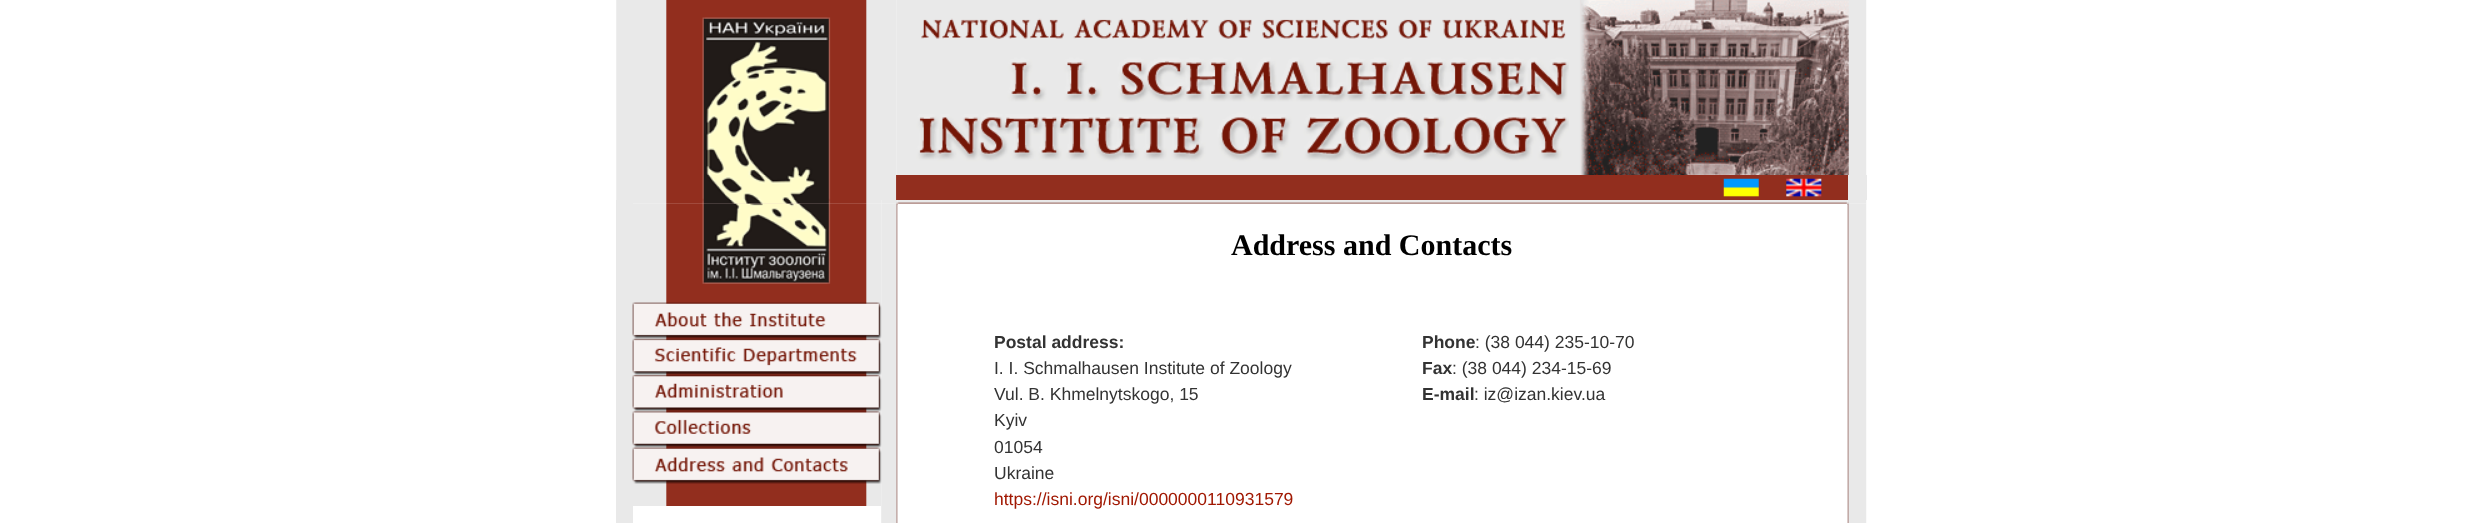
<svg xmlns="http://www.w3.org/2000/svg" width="2481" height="523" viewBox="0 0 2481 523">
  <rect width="100%" height="100%" fill="#ffffff"/>
  <image x="616" y="0" width="281" height="175" href="img1.png"/>
  <image x="896" y="0" width="971" height="175" href="img2.png"/>
  <image x="616" y="175" width="280" height="25" href="img3.png"/>
  <rect x="897" y="175" width="951" height="25" fill="#922e1e"/>
  <rect x="896" y="175" width="1" height="25" fill="#98392a"/>
  <image x="1723" y="178" width="36" height="19" href="img4.png"/>
  <image x="1786" y="178" width="36" height="19" href="img5.png"/>
  <rect x="1848" y="175" width="19" height="25" fill="#e9e9e9"/>
  <image x="633" y="203" width="249" height="320" href="img10.png"/>
  <image x="881" y="203" width="17" height="320" href="img17.png"/>
  <image x="633" y="200" width="249" height="4" href="img6.png"/>
  <image x="881" y="200" width="17" height="4" href="img7.png"/>
  <image x="1847" y="203" width="20" height="320" href="img19.png"/>
  <image x="897" y="200" width="951" height="4" href="img8.png"/>
  <image x="1847" y="200" width="20" height="4" href="img9.png"/>
  <rect x="616" y="200" width="17" height="323" fill="#e9e9e9"/>
  <image x="666" y="203" width="201" height="81" href="img11.png"/>
  <image x="632" y="302" width="250" height="37" href="img12.png"/>
  <image x="632" y="338" width="250" height="37" href="img13.png"/>
  <image x="632" y="375" width="250" height="37" href="img14.png"/>
  <image x="632" y="411" width="250" height="37" href="img15.png"/>
  <image x="632" y="447" width="250" height="37" href="img16.png"/>
  <rect x="633" y="506" width="248" height="17" fill="#ffffff"/>
  <image x="896" y="203" width="2" height="2" href="img18.png"/>
  <text x="1231" y="255" font-family="Liberation Serif" font-size="30" font-weight="bold" fill="#000000">Address and Contacts</text>
  <text x="994" y="348" font-family="Liberation Sans" font-size="17.5" font-weight="bold" fill="#333333">Postal address:</text>
  <text x="994" y="374" font-family="Liberation Sans" font-size="17.5" fill="#333333">I. I. Schmalhausen Institute of Zoology</text>
  <text x="994" y="400" font-family="Liberation Sans" font-size="17.5" fill="#333333">Vul. B. Khmelnytskogo, 15</text>
  <text x="994" y="426" font-family="Liberation Sans" font-size="17.5" fill="#333333">Kyiv</text>
  <text x="994" y="453" font-family="Liberation Sans" font-size="17.5" fill="#333333">01054</text>
  <text x="994" y="479" font-family="Liberation Sans" font-size="17.5" fill="#333333">Ukraine</text>
  <text x="994" y="505" font-family="Liberation Sans" font-size="17.5" fill="#a11802">https://isni.org/isni/0000000110931579</text>
  <text x="1422" y="348" font-family="Liberation Sans" font-size="17.5" font-weight="bold" fill="#333333">Phone</text>
  <text x="1475" y="348" font-family="Liberation Sans" font-size="17.5" fill="#333333">: (38 044) 235-10-70</text>
  <text x="1422" y="374" font-family="Liberation Sans" font-size="17.5" font-weight="bold" fill="#333333">Fax</text>
  <text x="1452" y="374" font-family="Liberation Sans" font-size="17.5" fill="#333333">: (38 044) 234-15-69</text>
  <text x="1422" y="400" font-family="Liberation Sans" font-size="17.5" font-weight="bold" fill="#333333">E-mail</text>
  <text x="1474" y="400" font-family="Liberation Sans" font-size="17.5" fill="#333333">: iz@izan.kiev.ua</text>
  <image x="1847" y="203" width="2" height="2" href="img20.png"/>
</svg>
